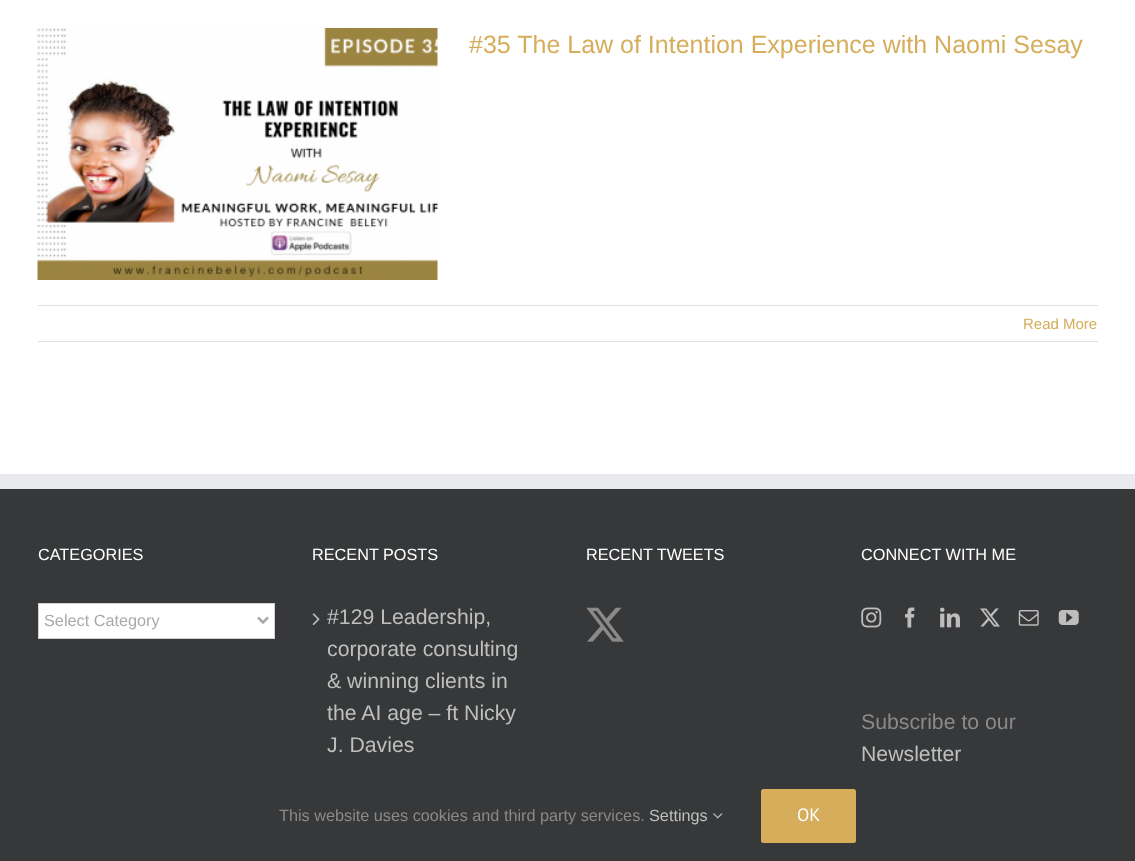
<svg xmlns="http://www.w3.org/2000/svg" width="1135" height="861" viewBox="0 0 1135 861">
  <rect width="100%" height="100%" fill="#ffffff"/>
  <image x="37" y="28" width="401" height="252" href="img1.png"/>
  <text x="469" y="53" font-family="Liberation Sans" font-size="25" fill="#d6ad5a">#35 The Law of Intention Experience with Naomi Sesay</text>
  <rect x="38" y="305" width="1060" height="1" fill="#e0dede"/>
  <rect x="38" y="341" width="1060" height="1" fill="#e0dede"/>
  <text x="1023" y="329" font-family="Liberation Sans" font-size="15" fill="#d6ad5a">Read More</text>
  <rect x="0" y="489" width="1135" height="372" fill="#363839"/>
  <rect x="0" y="474" width="1135" height="15" fill="#e9eaee"/>
  <text x="38" y="560" font-family="Liberation Sans" font-size="16.25" fill="#ffffff">CATEGORIES</text>
  <rect x="38.5" y="603.5" width="236" height="35" fill="#ffffff" stroke="#d2d2d2"/>
  <path d="M258 617.5L263 622.5L268 617.5" fill="none" stroke="#aaa9a9" stroke-width="2.5"/>
  <text x="44" y="626" font-family="Liberation Sans" font-size="16.25" fill="#aaa9a9">Select Category</text>
  <text x="312" y="560" font-family="Liberation Sans" font-size="16.25" fill="#ffffff">RECENT POSTS</text>
  <image x="312" y="613" width="8" height="13" href="img2.png"/>
  <text x="327" y="624" font-family="Liberation Sans" font-size="21.25" fill="#bfbfbf">#129 Leadership,</text>
  <text x="327" y="656" font-family="Liberation Sans" font-size="21.25" fill="#bfbfbf">corporate consulting</text>
  <text x="327" y="688" font-family="Liberation Sans" font-size="21.25" fill="#bfbfbf">&amp; winning clients in</text>
  <text x="327" y="720" font-family="Liberation Sans" font-size="21.25" fill="#bfbfbf">the AI age – ft Nicky</text>
  <text x="327" y="752" font-family="Liberation Sans" font-size="21.25" fill="#bfbfbf">J. Davies</text>
  <text x="586" y="560" font-family="Liberation Sans" font-size="16.25" fill="#ffffff">RECENT TWEETS</text>
  <image x="586" y="607" width="38" height="35" href="img3.png"/>
  <text x="861" y="560" font-family="Liberation Sans" font-size="16.25" fill="#ffffff">CONNECT WITH ME</text>
  <image x="861" y="607" width="21" height="21" href="img4.png"/>
  <image x="905" y="607" width="10" height="21" href="img5.png"/>
  <image x="940" y="607" width="20" height="21" href="img6.png"/>
  <image x="980" y="608" width="20" height="19" href="img7.png"/>
  <image x="1018" y="610" width="21" height="16" href="img8.png"/>
  <image x="1058" y="610" width="21" height="15" href="img9.png"/>
  <text x="861" y="729" font-family="Liberation Sans" font-size="21.25" fill="#8c8989">Subscribe to our</text>
  <text x="861" y="761" font-family="Liberation Sans" font-size="21.25" fill="#bfbfbf">Newsletter</text>
  <text x="279" y="821" font-family="Liberation Sans" font-size="16.25" fill="#8c8989">This website uses cookies and third party services.</text>
  <text x="649" y="821" font-family="Liberation Sans" font-size="16.25" fill="#bfbfbf">Settings</text>
  <image x="713" y="813" width="10" height="6" href="img10.png"/>
  <rect x="761" y="789" width="95" height="54" rx="2.5" fill="#d6ad5a"/>
  <text x="797" y="821" font-family="PT Sans" font-size="18" fill="#ffffff">OK</text>
</svg>
